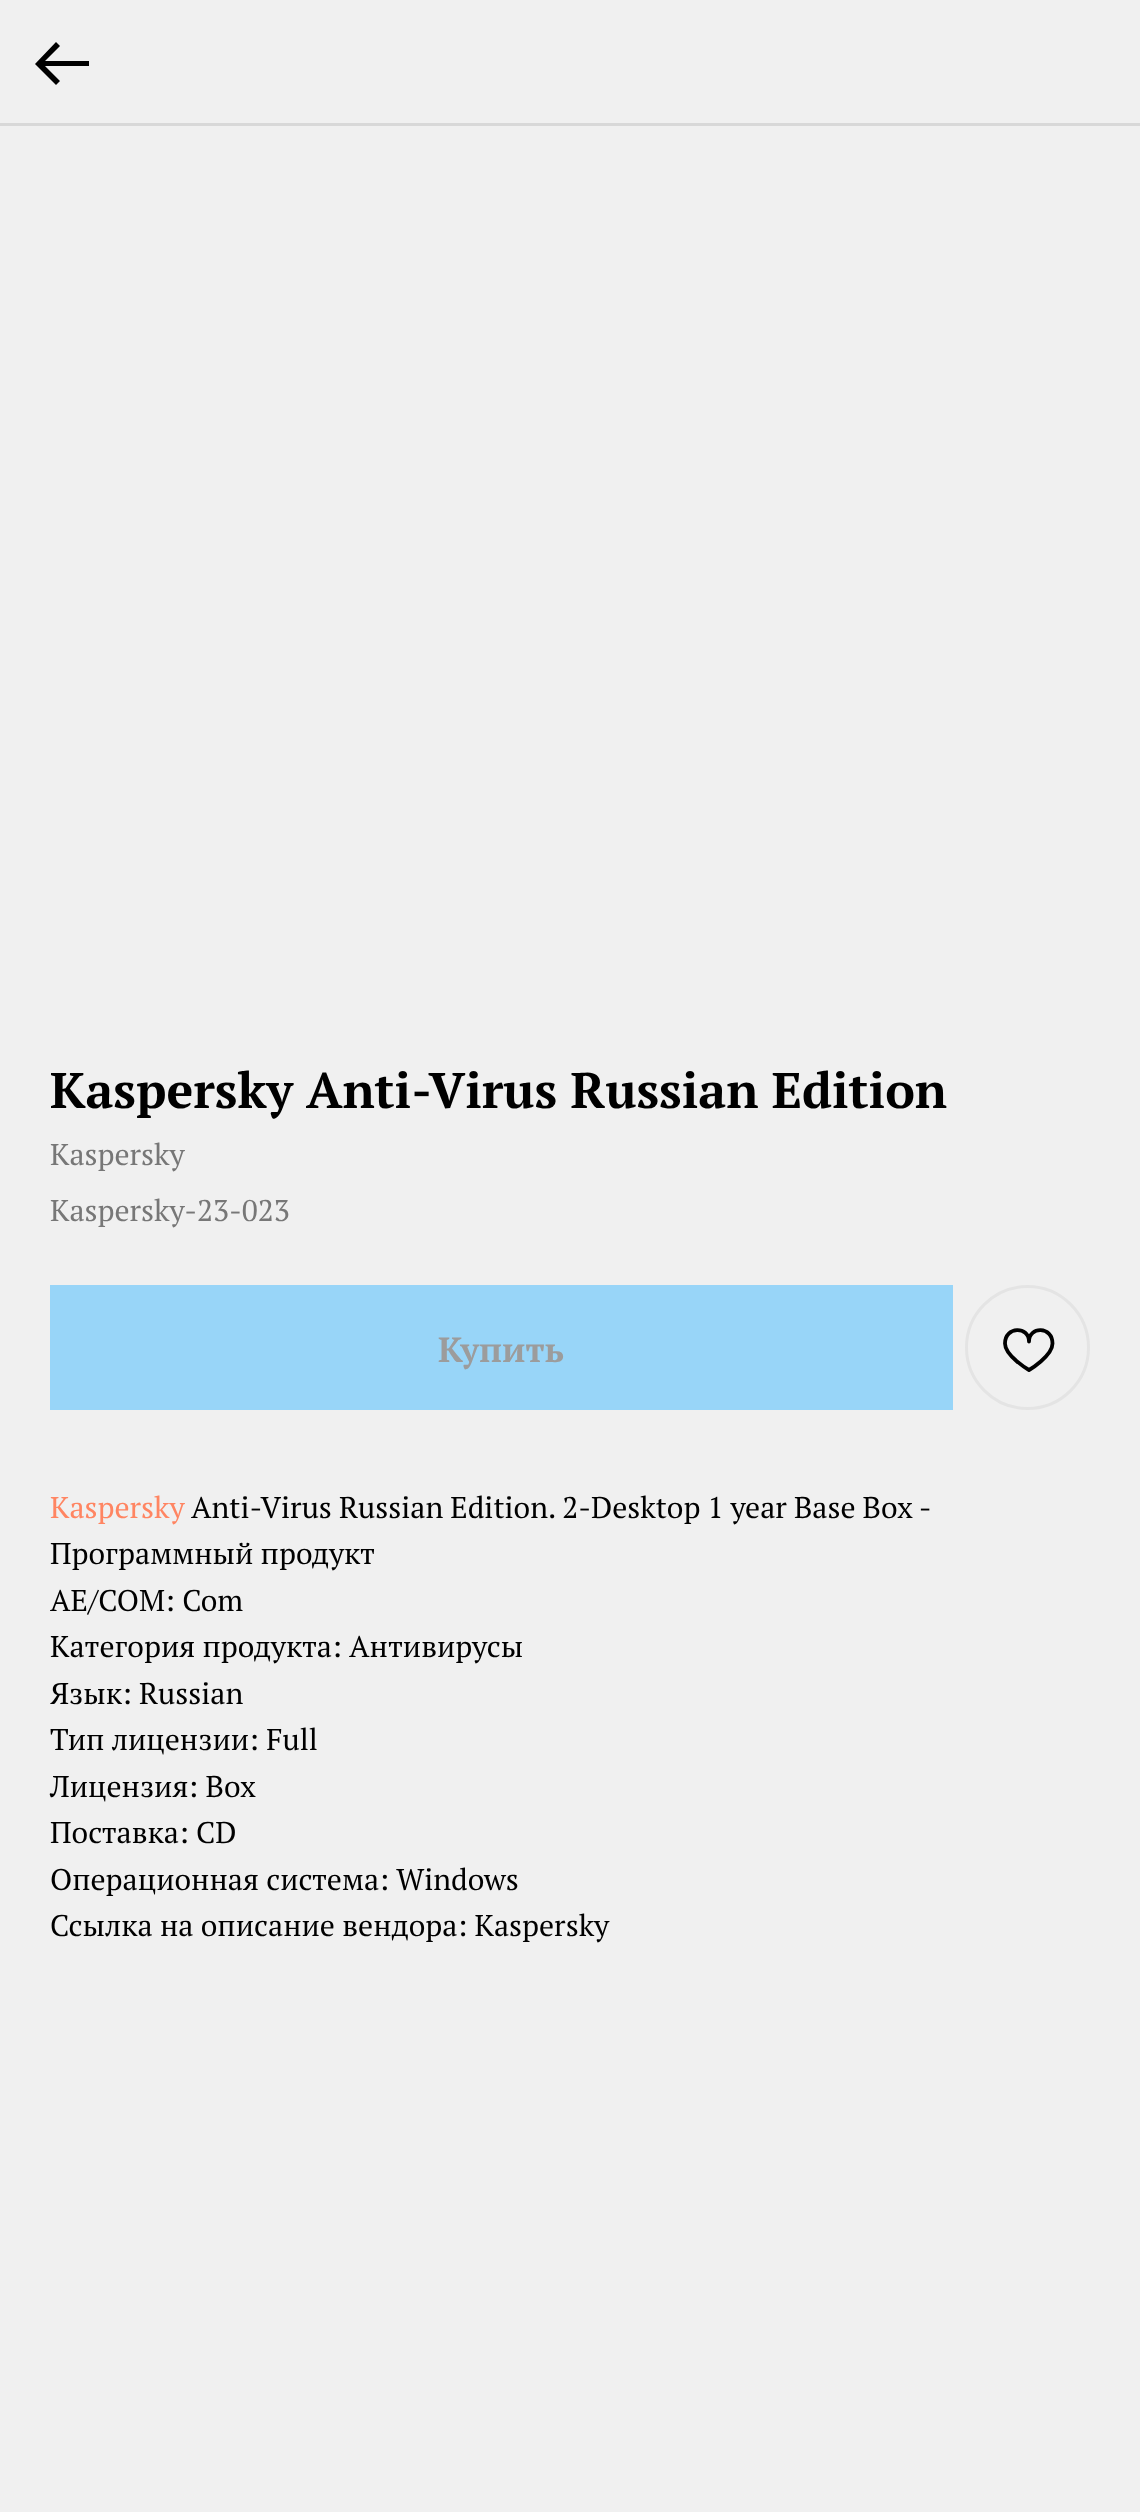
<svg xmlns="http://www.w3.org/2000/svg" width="1140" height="2512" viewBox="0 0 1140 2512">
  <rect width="100%" height="100%" fill="#f0f0f0"/>
  <rect x="0" y="123" width="1140" height="3" fill="#d8d8d8"/>
  <path d="M56 42L60 46L45 61H89V66H45L60 81L56 85L35 64Z" fill="#000000"/>
  <text x="50" y="1108" font-family="PT Serif" font-size="50" font-weight="bold" fill="#000000">Kaspersky Anti-Virus Russian Edition</text>
  <text x="50" y="1165" font-family="PT Serif" font-size="30" fill="#777777">Kaspersky</text>
  <text x="50" y="1221" font-family="PT Serif" font-size="30" fill="#777777">Kaspersky-23-023</text>
  <rect x="50" y="1285" width="903" height="125" fill="#98d5f8"/>
  <text x="438" y="1362" font-family="PT Serif" font-size="35" font-weight="bold" fill="#9c9c9c">Купить</text>
  <circle cx="1027.5" cy="1347.5" r="61" fill="none" stroke="#e4e4e4" stroke-width="3"/>
  <path d="M1052.5 1343.5C1052.5 1356 1029 1370 1029 1370C1029 1370 1005 1356 1005 1343.5C1005 1326 1029 1326 1029 1341.5C1029 1326 1052.5 1326 1052.5 1343.5Z" fill="none" stroke="#000000" stroke-width="3.8" stroke-linejoin="round"/>
  <text x="50" y="1518" font-family="PT Serif" font-size="30" fill="#ff8562">Kaspersky</text>
  <text x="191" y="1518" word-spacing="-0.25" font-family="PT Serif" font-size="30" fill="#000000">Anti-Virus Russian Edition. 2-Desktop 1 year Base Box -</text>
  <text x="50" y="1564" font-family="PT Serif" font-size="30" fill="#000000">Программный продукт</text>
  <text x="50" y="1611" font-family="PT Serif" font-size="30" fill="#000000">AE/COM: Com</text>
  <text x="50" y="1657" font-family="PT Serif" font-size="30" fill="#000000">Категория продукта: Антивирусы</text>
  <text x="50" y="1704" font-family="PT Serif" font-size="30" fill="#000000">Язык: Russian</text>
  <text x="50" y="1750" font-family="PT Serif" font-size="30" fill="#000000">Тип лицензии: Full</text>
  <text x="50" y="1797" font-family="PT Serif" font-size="30" fill="#000000">Лицензия: Box</text>
  <text x="50" y="1843" font-family="PT Serif" font-size="30" fill="#000000">Поставка: CD</text>
  <text x="50" y="1890" font-family="PT Serif" font-size="30" fill="#000000">Операционная система: Windows</text>
  <text x="50" y="1936" font-family="PT Serif" font-size="30" fill="#000000">Ссылка на описание вендора: Kaspersky</text>
</svg>
